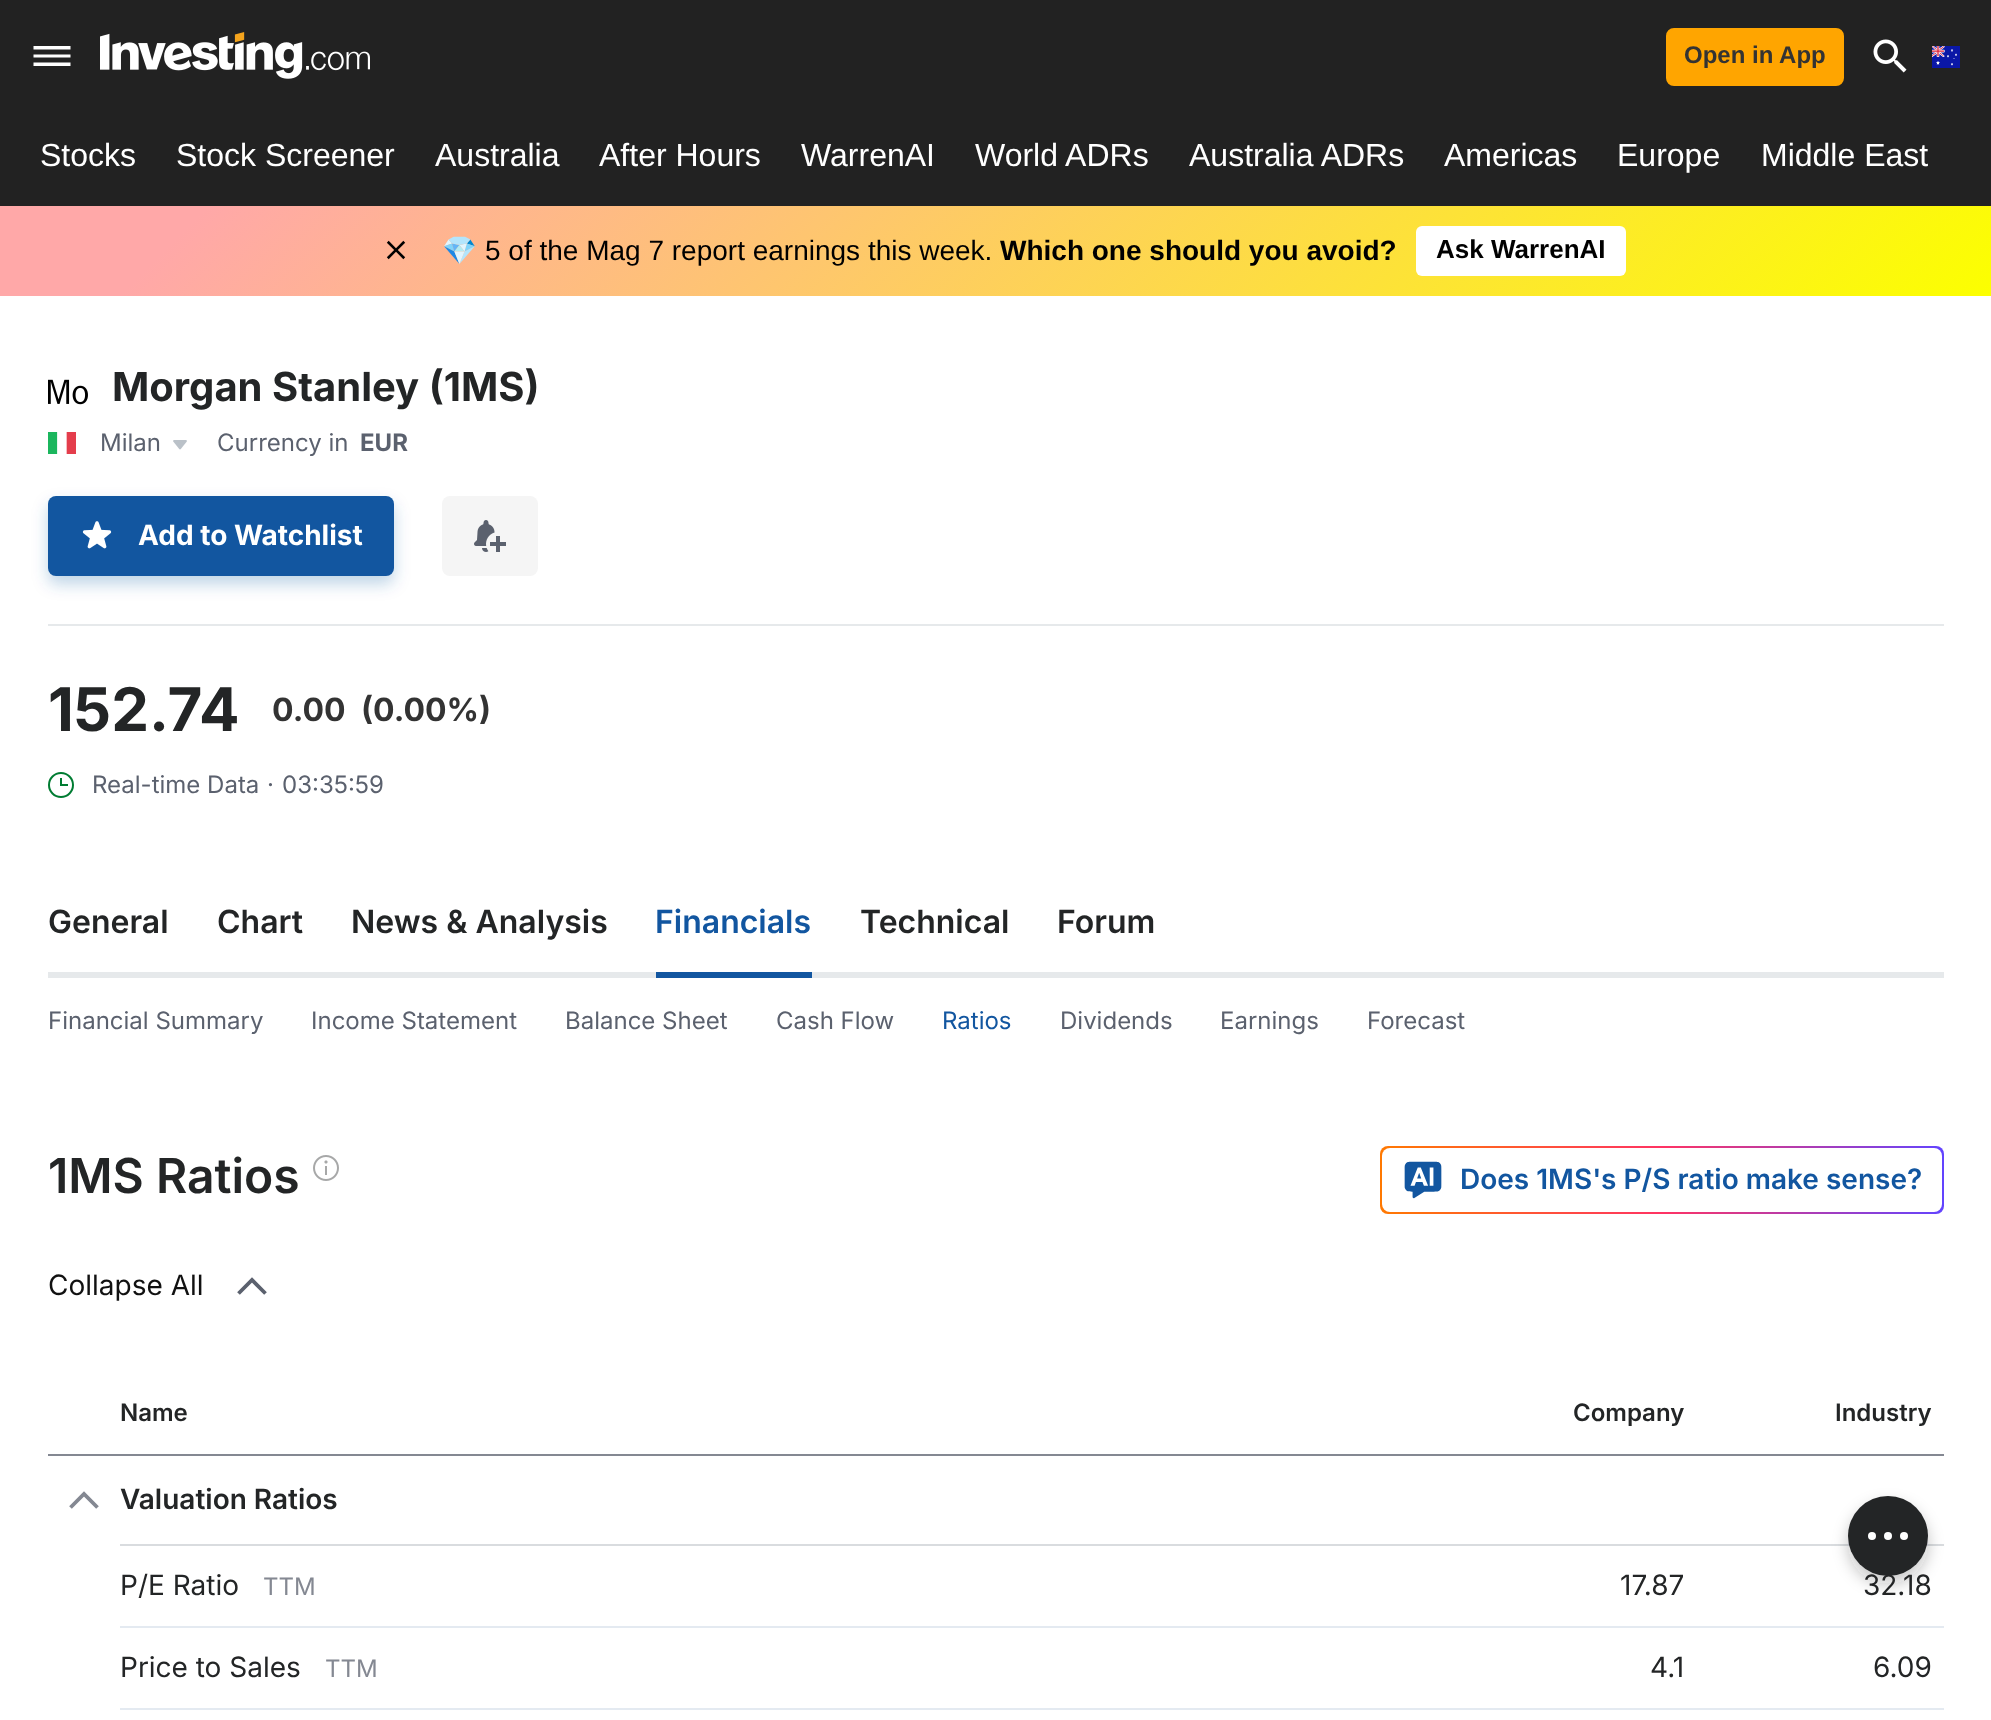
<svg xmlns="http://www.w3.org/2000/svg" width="1991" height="1720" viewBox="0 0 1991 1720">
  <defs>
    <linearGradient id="g1" gradientUnits="userSpaceOnUse" x1="475" y1="-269" x2="1517" y2="772"><stop offset="0.1" stop-color="#ffa8a8"/><stop offset="1" stop-color="#fcff00"/></linearGradient>
    <filter id="blur1" x="-50%" y="-200%" width="200%" height="500%"><feGaussianBlur stdDeviation="8"/></filter>
    <linearGradient id="g2" gradientUnits="userSpaceOnUse" x1="1380" y1="1180" x2="1944" y2="1180"><stop offset="0" stop-color="#ff7901"/><stop offset="0.5" stop-color="#ff3363"/><stop offset="1" stop-color="#6244ff"/></linearGradient>
  </defs>
  <rect width="100%" height="100%" fill="#ffffff"/>
  <rect x="0" y="0" width="1991" height="206" fill="#222222"/>
  <path d="M33.5 66H70.5V62.5H33.5ZM33.5 57.5H70.5V54.5H33.5ZM33.5 46V49.5H70.5V46Z" fill="#ffffff" fill-rule="evenodd"/>
  <image x="100" y="32" width="270" height="47" href="img1.png"/>
  <rect x="1667" y="29" width="176" height="56" rx="7" fill="#ffa500" stroke="#ffa500" stroke-width="2"/>
  <text x="1684" y="63" font-family="Liberation Sans" font-size="24" font-weight="bold" fill="#333333">Open in App</text>
  <image x="1873" y="39" width="34" height="34" href="img2.png"/>
  <image x="1932" y="46" width="28" height="22" href="img3.png"/>
  <text x="40" y="166" font-family="Liberation Sans" font-size="32" fill="#ffffff">Stocks</text>
  <text x="176" y="166" font-family="Liberation Sans" font-size="32" fill="#ffffff">Stock Screener</text>
  <text x="435" y="166" font-family="Liberation Sans" font-size="32" fill="#ffffff">Australia</text>
  <text x="599" y="166" font-family="Liberation Sans" font-size="32" fill="#ffffff">After Hours</text>
  <text x="801" y="166" font-family="Liberation Sans" font-size="32" fill="#ffffff">WarrenAI</text>
  <text x="975" y="166" font-family="Liberation Sans" font-size="32" fill="#ffffff">World ADRs</text>
  <text x="1189" y="166" font-family="Liberation Sans" font-size="32" fill="#ffffff">Australia ADRs</text>
  <text x="1444" y="166" font-family="Liberation Sans" font-size="32" fill="#ffffff">Americas</text>
  <text x="1617" y="166" font-family="Liberation Sans" font-size="32" fill="#ffffff">Europe</text>
  <text x="1761" y="166" font-family="Liberation Sans" font-size="32" fill="#ffffff">Middle East</text>
  <rect x="0" y="206" width="1991" height="90" fill="url(#g1)"/>
  <image x="386" y="240" width="20" height="20" href="img4.png"/>
  <text x="442" y="260" font-family="Noto Color Emoji" font-size="28" fill="#000000">💎</text>
  <text x="485" y="260" font-family="Liberation Sans" font-size="28" fill="#000000">5 of the Mag 7 report earnings this week.</text>
  <text x="1000" y="260" font-family="Liberation Sans" font-size="28" font-weight="bold" fill="#000000">Which one should you avoid?</text>
  <rect x="1416" y="226" width="210" height="50" rx="6" fill="#ffffff"/>
  <text x="1436" y="258" font-family="Liberation Sans" font-size="26" font-weight="bold" fill="#000000">Ask WarrenAI</text>
  <image x="48" y="379" width="40" height="26" href="img5.png"/>
  <text x="112" y="401" font-family="Inter" font-size="40" font-weight="bold" fill="#232526">Morgan Stanley (1MS)</text>
  <image x="48" y="432" width="28" height="22" href="img6.png"/>
  <text x="100" y="451" font-family="Inter" font-size="24" fill="#5b616e">Milan</text>
  <image x="173" y="440" width="14" height="10" href="img7.png"/>
  <text x="217" y="451" font-family="Inter" font-size="24" fill="#5b616e">Currency in</text>
  <text x="360" y="451" font-family="Inter" font-size="24" font-weight="bold" fill="#5b616e">EUR</text>
  <rect x="48" y="504" width="346" height="80" rx="8" fill="#1256a0" fill-opacity="0.25" filter="url(#blur1)"/>
  <rect x="48" y="496" width="346" height="80" rx="8" fill="#1256a0"/>
  <image x="82" y="521" width="30" height="28" href="img8.png"/>
  <text x="138" y="545" font-family="Inter" font-size="28" font-weight="bold" fill="#ffffff">Add to Watchlist</text>
  <rect x="442" y="496" width="96" height="80" rx="8" fill="#f5f5f5"/>
  <image x="474" y="520" width="32" height="32" href="img9.png"/>
  <rect x="48" y="624" width="1896" height="2" fill="#e6e9eb"/>
  <text x="48" y="731" font-family="Inter" font-size="60" font-weight="bold" fill="#232526">152.74</text>
  <text x="272" y="721" font-family="Inter" font-size="32" font-weight="bold" fill="#333333">0.00</text>
  <text x="361" y="721" font-family="Inter" font-size="32" font-weight="bold" fill="#333333">(0.00%)</text>
  <image x="48" y="772" width="26" height="26" href="img10.png"/>
  <text x="92" y="793" font-family="Inter" font-size="24" fill="#5b616e">Real-time Data</text>
  <text x="267" y="793" font-family="Inter" font-size="24" fill="#5b616e">·</text>
  <text x="282" y="793" font-family="Inter" font-size="24" fill="#5b616e">03:35:59</text>
  <rect x="48" y="972" width="1896" height="6" fill="#e6e9eb"/>
  <text x="48" y="933" font-family="Inter" font-size="32" font-weight="600" fill="#232526">General</text>
  <text x="217" y="933" font-family="Inter" font-size="32" font-weight="600" fill="#232526">Chart</text>
  <text x="351" y="933" font-family="Inter" font-size="32" font-weight="600" fill="#232526">News &amp; Analysis</text>
  <rect x="656" y="972" width="156" height="6" fill="#1256a0"/>
  <text x="655" y="933" font-family="Inter" font-size="32" font-weight="600" fill="#1256a0">Financials</text>
  <text x="860" y="933" font-family="Inter" font-size="32" font-weight="600" fill="#232526">Technical</text>
  <text x="1057" y="933" font-family="Inter" font-size="32" font-weight="600" fill="#232526">Forum</text>
  <text x="48" y="1029" font-family="Inter" font-size="24" fill="#5b616e">Financial Summary</text>
  <text x="311" y="1029" font-family="Inter" font-size="24" fill="#5b616e">Income Statement</text>
  <text x="565" y="1029" font-family="Inter" font-size="24" fill="#5b616e">Balance Sheet</text>
  <text x="776" y="1029" font-family="Inter" font-size="24" fill="#5b616e">Cash Flow</text>
  <text x="942" y="1029" font-family="Inter" font-size="24" fill="#1256a0">Ratios</text>
  <text x="1060" y="1029" font-family="Inter" font-size="24" fill="#5b616e">Dividends</text>
  <text x="1220" y="1029" font-family="Inter" font-size="24" fill="#5b616e">Earnings</text>
  <text x="1367" y="1029" font-family="Inter" font-size="24" fill="#5b616e">Forecast</text>
  <text x="48" y="1193" font-family="Inter" font-size="48" font-weight="600" fill="#232526">1MS Ratios</text>
  <image x="313" y="1155" width="26" height="26" href="img11.png"/>
  <rect x="1380" y="1146" width="564" height="68" rx="8" fill="url(#g2)"/>
  <rect x="1382" y="1148" width="560" height="64" rx="8" fill="#ffffff"/>
  <image x="1404" y="1161" width="38" height="38" href="img12.png"/>
  <text x="1460" y="1189" font-family="Inter" font-size="28" font-weight="600" fill="#1256a0">Does 1MS's P/S ratio make sense?</text>
  <text x="48" y="1295" font-family="Inter" font-size="28" fill="#111111">Collapse All</text>
  <path d="M238.5 1293.5L252 1280L265.5 1293.5" fill="none" stroke="#5b616e" stroke-width="3.8"/>
  <text x="120" y="1421" font-family="Inter" font-size="24" font-weight="600" fill="#232526">Name</text>
  <text x="1573" y="1421" font-family="Inter" font-size="24" font-weight="600" fill="#232526">Company</text>
  <text x="1835" y="1421" font-family="Inter" font-size="24" font-weight="600" fill="#232526">Industry</text>
  <rect x="48" y="1454" width="1896" height="2" fill="#848892"/>
  <path d="M70.5 1507.5L84 1494L97.5 1507.5" fill="none" stroke="#848892" stroke-width="3.8"/>
  <text x="120" y="1509" font-family="Inter" font-size="28" font-weight="600" fill="#232526">Valuation Ratios</text>
  <rect x="120" y="1544" width="1824" height="2" fill="#d9dcdf"/>
  <text x="120" y="1595" font-family="Inter" font-size="28" fill="#232526">P/E Ratio</text>
  <text x="263" y="1595" font-family="Inter" font-size="24" fill="#848892">TTM</text>
  <rect x="120" y="1626" width="1824" height="2" fill="#e4eaf1"/>
  <text x="120" y="1677" font-family="Inter" font-size="28" fill="#232526">Price to Sales</text>
  <text x="325" y="1677" font-family="Inter" font-size="24" fill="#848892">TTM</text>
  <rect x="120" y="1708" width="1824" height="2" fill="#e4eaf1"/>
  <text x="1620" y="1595" font-family="Inter" font-size="28" fill="#232526">17.87</text>
  <text x="1863" y="1595" font-family="Inter" font-size="28" fill="#232526">32.18</text>
  <text x="1650" y="1677" font-family="Inter" font-size="28" fill="#232526">4.1</text>
  <text x="1873" y="1677" font-family="Inter" font-size="28" fill="#232526">6.09</text>
  <rect x="1848" y="1504" width="80" height="80" rx="40" fill="#232526" fill-opacity="0.25" filter="url(#blur1)"/>
  <circle cx="1888" cy="1536" r="40" fill="#232526"/>
  <circle cx="1904" cy="1536" r="4" fill="#ffffff"/>
  <circle cx="1872" cy="1536" r="4" fill="#ffffff"/>
  <circle cx="1888" cy="1536" r="4" fill="#ffffff"/>
</svg>
